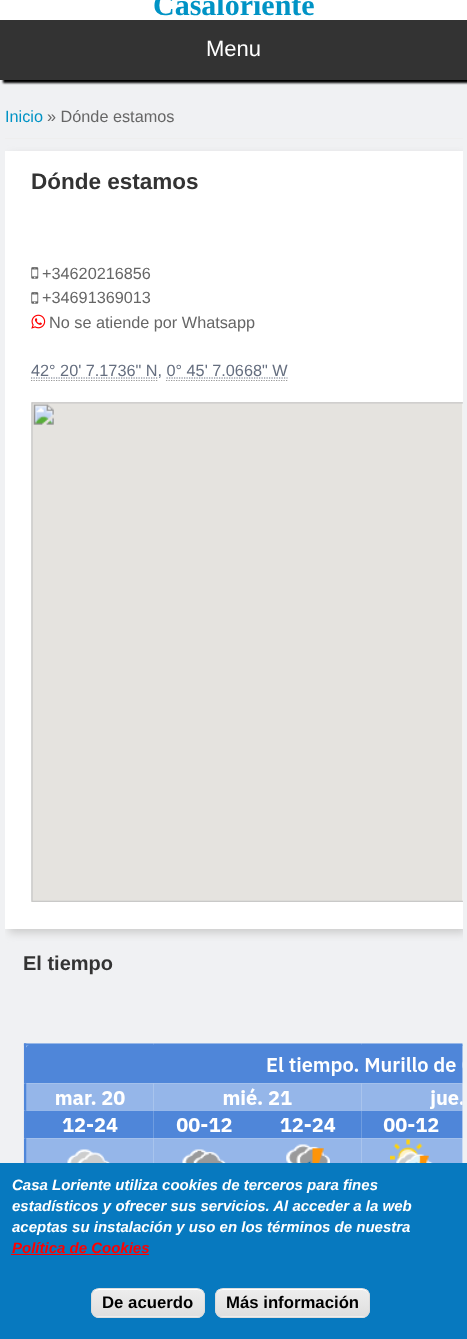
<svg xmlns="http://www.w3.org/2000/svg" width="467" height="1339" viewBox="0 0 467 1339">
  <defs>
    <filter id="blur1" x="-50%" y="-200%" width="200%" height="500%"><feGaussianBlur stdDeviation="1"/></filter>
    <clipPath id="clip1"><rect x="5" y="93" width="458" height="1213"/></clipPath>
    <filter id="blur2" x="-50%" y="-200%" width="200%" height="500%"><feGaussianBlur stdDeviation="4"/></filter>
    <clipPath id="clip2"><rect x="91" y="1288" width="114" height="30" rx="8"/></clipPath>
    <linearGradient id="g1" gradientUnits="userSpaceOnUse" x1="93" y1="1289" x2="93" y2="1316"><stop offset="0.05" stop-color="#ededed"/><stop offset="1" stop-color="#dfdfdf"/></linearGradient>
    <linearGradient id="g2" gradientUnits="userSpaceOnUse" x1="93" y1="1316" x2="93" y2="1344"><stop offset="0.05" stop-color="#ededed"/><stop offset="1" stop-color="#dfdfdf"/></linearGradient>
    <clipPath id="clip3"><rect x="215" y="1288" width="155" height="30" rx="8"/></clipPath>
    <linearGradient id="g3" gradientUnits="userSpaceOnUse" x1="216" y1="1289" x2="216" y2="1316"><stop offset="0.05" stop-color="#ededed"/><stop offset="1" stop-color="#dfdfdf"/></linearGradient>
    <linearGradient id="g4" gradientUnits="userSpaceOnUse" x1="216" y1="1316" x2="216" y2="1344"><stop offset="0.05" stop-color="#ededed"/><stop offset="1" stop-color="#dfdfdf"/></linearGradient>
  </defs>
  <rect width="100%" height="100%" fill="#f0f1f3"/>
  <rect x="0" y="0" width="467" height="20" fill="#ffffff"/>
  <text x="153" y="15" font-family="Liberation Serif" font-size="30" font-weight="bold" fill="#0093c5">Casaloriente</text>
  <rect x="3" y="23" width="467" height="60" fill="#000000" filter="url(#blur1)"/>
  <rect x="0" y="20" width="467" height="60" fill="#333333"/>
  <text x="206" y="56" font-family="Liberation Sans" font-size="22" fill="#ffffff">Menu</text>
  <rect x="5" y="138" width="458" height="1" fill="#eeeeee"/>
  <text x="5" y="122" font-family="Liberation Sans" font-size="16.25" fill="#0093c5">Inicio</text>
  <text x="47" y="122" font-family="Liberation Sans" font-size="16.25" fill="#666666">» Dónde estamos</text>
  <g clip-path="url(#clip1)">
    <rect x="9" y="155" width="457" height="778" fill="#cccccc" filter="url(#blur2)"/>
  </g>
  <rect x="5" y="151" width="458" height="778" fill="#ffffff"/>
  <text x="31" y="189" font-family="Liberation Sans" font-size="22.5" font-weight="bold" fill="#333333">Dónde estamos</text>
  <image x="31" y="267" width="8" height="12" href="img1.png"/>
  <text x="42" y="279" font-family="Liberation Sans" font-size="16.25" fill="#666666">+34620216856</text>
  <image x="31" y="292" width="8" height="12" href="img1.png"/>
  <text x="42" y="303" font-family="Liberation Sans" font-size="16.25" fill="#666666">+34691369013</text>
  <image x="31" y="314" width="15" height="15" href="img2.png"/>
  <text x="49" y="328" font-family="Liberation Sans" font-size="16.25" fill="#666666">No se atiende por Whatsapp</text>
  <path d="M31 378H157.5" fill="none" stroke="#656e7f" stroke-width="1.2" stroke-dasharray="1.25 1.25"/>
  <text x="31" y="376" font-family="Liberation Sans" font-size="16.25" fill="#656e7f">42° 20' 7.1736" N, 0° 45' 7.0668" W</text>
  <path d="M31 380.5H157.5" fill="none" stroke="#999999" stroke-width="1.2" stroke-dasharray="1.25 1.25"/>
  <path d="M166 380.5H287.5" fill="none" stroke="#999999" stroke-width="1.2" stroke-dasharray="1.25 1.25"/>
  <path d="M166.5 378H287.5" fill="none" stroke="#656e7f" stroke-width="1.2" stroke-dasharray="1.25 1.25"/>
  <image x="31" y="402" width="432" height="500" href="img3.png"/>
  <text x="23" y="970" font-family="Liberation Sans" font-size="20" font-weight="bold" fill="#333333">El tiempo</text>
  <image x="23" y="1043" width="440" height="120" href="img4.png"/>
  <rect x="0" y="1163" width="467" height="176" fill="#0779bf"/>
  <text x="12" y="1190" font-family="Liberation Sans" font-size="15" font-weight="bold" font-style="italic" fill="#ffffff">Casa Loriente utiliza cookies de terceros para fines</text>
  <text x="12" y="1211" font-family="Liberation Sans" font-size="15" font-weight="bold" font-style="italic" fill="#ffffff">estadísticos y ofrecer sus servicios. Al acceder a la web</text>
  <text x="12" y="1232" font-family="Liberation Sans" font-size="15" font-weight="bold" font-style="italic" fill="#ffffff">aceptas su instalación y uso en los términos de nuestra</text>
  <text x="12" y="1253" font-family="Liberation Sans" font-size="15" font-weight="bold" font-style="italic" fill="#ff0000">Política de Cookies</text>
  <rect x="11" y="1254" width="138" height="1" fill="#ff0000"/>
  <g clip-path="url(#clip2)">
    <rect x="91" y="1289" width="114" height="27" fill="url(#g1)"/>
    <rect x="91" y="1316" width="114" height="2" fill="url(#g2)"/>
  </g>
  <path d="M99 1290H198C201 1290 204 1293 204 1296V1295C204 1292 201 1289 198 1289H99C97 1289 95 1290 94 1292C95 1291 97 1290 99 1290Z" fill="#ffffff"/>
  <rect x="91.5" y="1288.5" width="113" height="29" rx="7.5" fill="none" stroke="#dcdcdc"/>
  <text x="102" y="1308" font-family="Liberation Sans" font-size="16.75" font-weight="bold" fill="#000000">De acuerdo</text>
  <g clip-path="url(#clip3)">
    <rect x="215" y="1289" width="155" height="27" fill="url(#g3)"/>
    <rect x="215" y="1316" width="155" height="2" fill="url(#g4)"/>
  </g>
  <path d="M222 1290H362C366 1290 369 1293 369 1296V1295C369 1292 366 1289 363 1289H222C219 1289 216 1292 216 1295V1296C216 1293 219 1290 222 1290Z" fill="#ffffff"/>
  <rect x="215.5" y="1288.5" width="154" height="29" rx="7.5" fill="none" stroke="#dcdcdc"/>
  <text x="226" y="1308" font-family="Liberation Sans" font-size="16.75" font-weight="bold" fill="#000000">Más información</text>
</svg>
